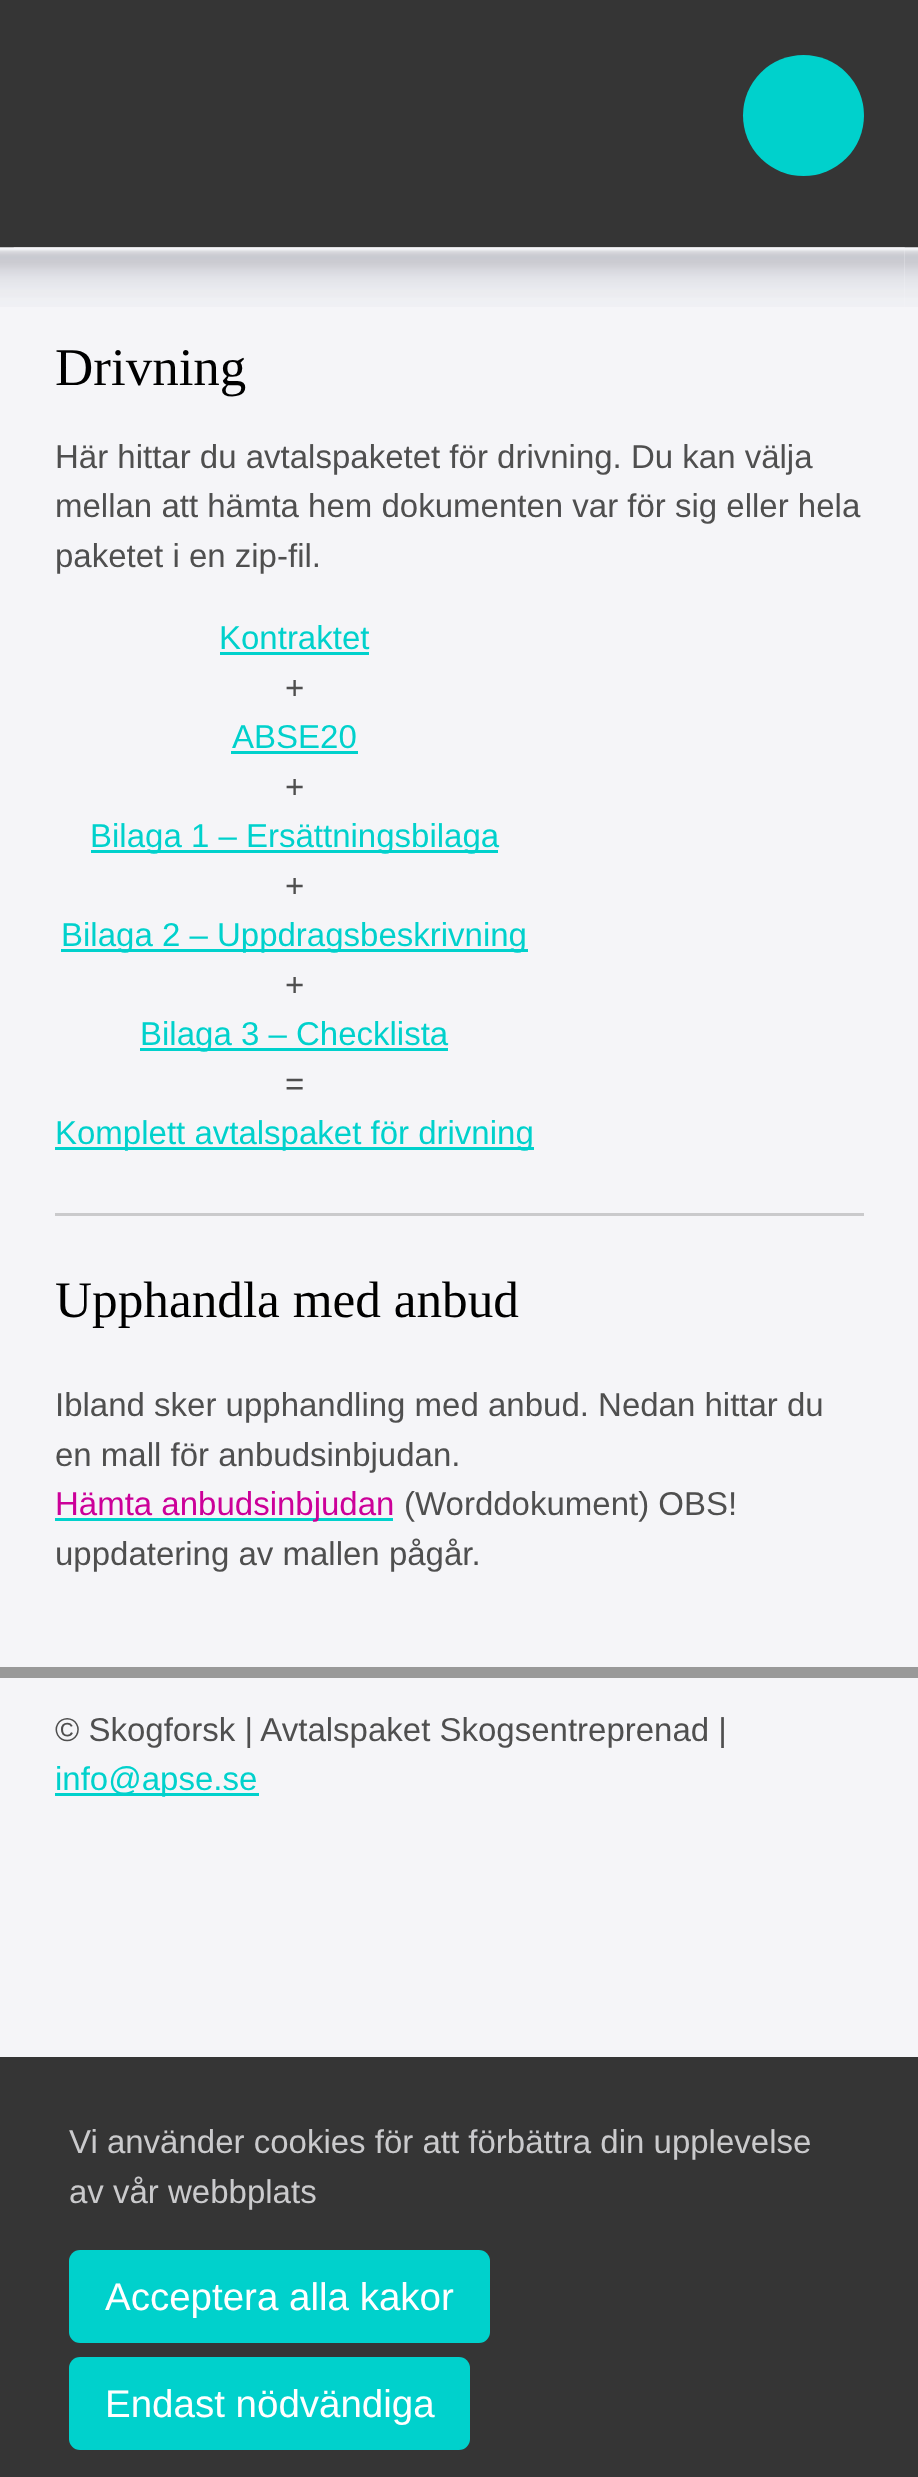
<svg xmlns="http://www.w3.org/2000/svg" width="918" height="2477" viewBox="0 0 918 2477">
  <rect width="100%" height="100%" fill="#f5f5f8"/>
  <rect x="0" y="0" width="918" height="247" fill="#353535"/>
  <circle cx="803.5" cy="115.5" r="60.5" fill="#00d1cc"/>
  <image x="0" y="248" width="918" height="59" href="img1.png"/>
  <rect x="0" y="247" width="918" height="1" fill="#c5c5c7"/>
  <rect x="14" y="249" width="891" height="58" fill="#f5f5f8"/>
  <image x="13" y="247" width="892" height="60" href="img2.png"/>
  <text x="55" y="385" font-family="Liberation Serif" font-size="53" fill="#000000">Drivning</text>
  <text x="55" y="468" font-family="Liberation Sans" font-size="33" fill="#4f4f4f">Här hittar du avtalspaketet för drivning. Du kan välja</text>
  <text x="55" y="517" font-family="Liberation Sans" font-size="33" fill="#4f4f4f">mellan att hämta hem dokumenten var för sig eller hela</text>
  <text x="55" y="567" font-family="Liberation Sans" font-size="33" fill="#4f4f4f">paketet i en zip-fil.</text>
  <text x="219" y="649" font-family="Liberation Sans" font-size="33" fill="#00d1cc">Kontraktet</text>
  <rect x="220" y="652" width="149" height="3" fill="#00d1cc"/>
  <text x="285" y="699" font-family="Liberation Sans" font-size="33" fill="#4f4f4f">+</text>
  <text x="232" y="748" font-family="Liberation Sans" font-size="33" fill="#00d1cc">ABSE20</text>
  <rect x="231" y="751" width="127" height="3" fill="#00d1cc"/>
  <text x="285" y="798" font-family="Liberation Sans" font-size="33" fill="#4f4f4f">+</text>
  <rect x="91" y="850" width="407" height="3" fill="#00d1cc"/>
  <text x="90" y="847" font-family="Liberation Sans" font-size="33" fill="#00d1cc">Bilaga 1 – Ersättningsbilaga</text>
  <text x="285" y="897" font-family="Liberation Sans" font-size="33" fill="#4f4f4f">+</text>
  <rect x="61" y="949" width="467" height="3" fill="#00d1cc"/>
  <text x="61" y="946" font-family="Liberation Sans" font-size="33" fill="#00d1cc">Bilaga 2 – Uppdragsbeskrivning</text>
  <text x="285" y="996" font-family="Liberation Sans" font-size="33" fill="#4f4f4f">+</text>
  <rect x="140" y="1048" width="308" height="3" fill="#00d1cc"/>
  <text x="140" y="1045" font-family="Liberation Sans" font-size="33" fill="#00d1cc">Bilaga 3 – Checklista</text>
  <text x="285" y="1095" font-family="Liberation Sans" font-size="33" fill="#4f4f4f">=</text>
  <rect x="55" y="1147" width="479" height="3" fill="#00d1cc"/>
  <text x="55" y="1144" font-family="Liberation Sans" font-size="33" fill="#00d1cc">Komplett avtalspaket för drivning</text>
  <rect x="55" y="1213" width="809" height="3" fill="#cacacc"/>
  <text x="55" y="1317" font-family="Liberation Serif" font-size="51.25" fill="#000000">Upphandla med anbud</text>
  <text x="55" y="1416" font-family="Liberation Sans" font-size="33" fill="#4f4f4f">Ibland sker upphandling med anbud. Nedan hittar du</text>
  <text x="55" y="1466" font-family="Liberation Sans" font-size="33" fill="#4f4f4f">en mall för anbudsinbjudan.</text>
  <rect x="55" y="1518" width="338" height="3" fill="#00d1cc"/>
  <text x="55" y="1515" font-family="Liberation Sans" font-size="33" fill="#cc0099">Hämta anbudsinbjudan</text>
  <text x="404" y="1515" font-family="Liberation Sans" font-size="33" fill="#4f4f4f">(Worddokument) OBS!</text>
  <text x="55" y="1565" font-family="Liberation Sans" font-size="33" fill="#4f4f4f">uppdatering av mallen pågår.</text>
  <rect x="0" y="1667" width="918" height="11" fill="#999999"/>
  <text x="55" y="1741" font-family="Liberation Sans" font-size="33" fill="#4f4f4f">© Skogforsk | Avtalspaket Skogsentreprenad |</text>
  <rect x="55" y="1793" width="204" height="3" fill="#00d1cc"/>
  <text x="55" y="1790" font-family="Liberation Sans" font-size="33" fill="#00d1cc">info@apse.se</text>
  <rect x="0" y="2057" width="918" height="420" fill="#353535"/>
  <text x="69" y="2153" font-family="Liberation Sans" font-size="33" fill="#cacacc">Vi använder cookies för att förbättra din upplevelse</text>
  <text x="69" y="2203" font-family="Liberation Sans" font-size="33" fill="#cacacc">av vår webbplats</text>
  <rect x="69" y="2250" width="421" height="93" rx="11" fill="#00d1cc"/>
  <text x="105" y="2310" font-family="Liberation Sans" font-size="38.5" fill="#ffffff">Acceptera alla kakor</text>
  <rect x="69" y="2357" width="401" height="93" rx="11" fill="#00d1cc"/>
  <text x="105" y="2417" font-family="Liberation Sans" font-size="38.5" fill="#ffffff">Endast nödvändiga</text>
</svg>
